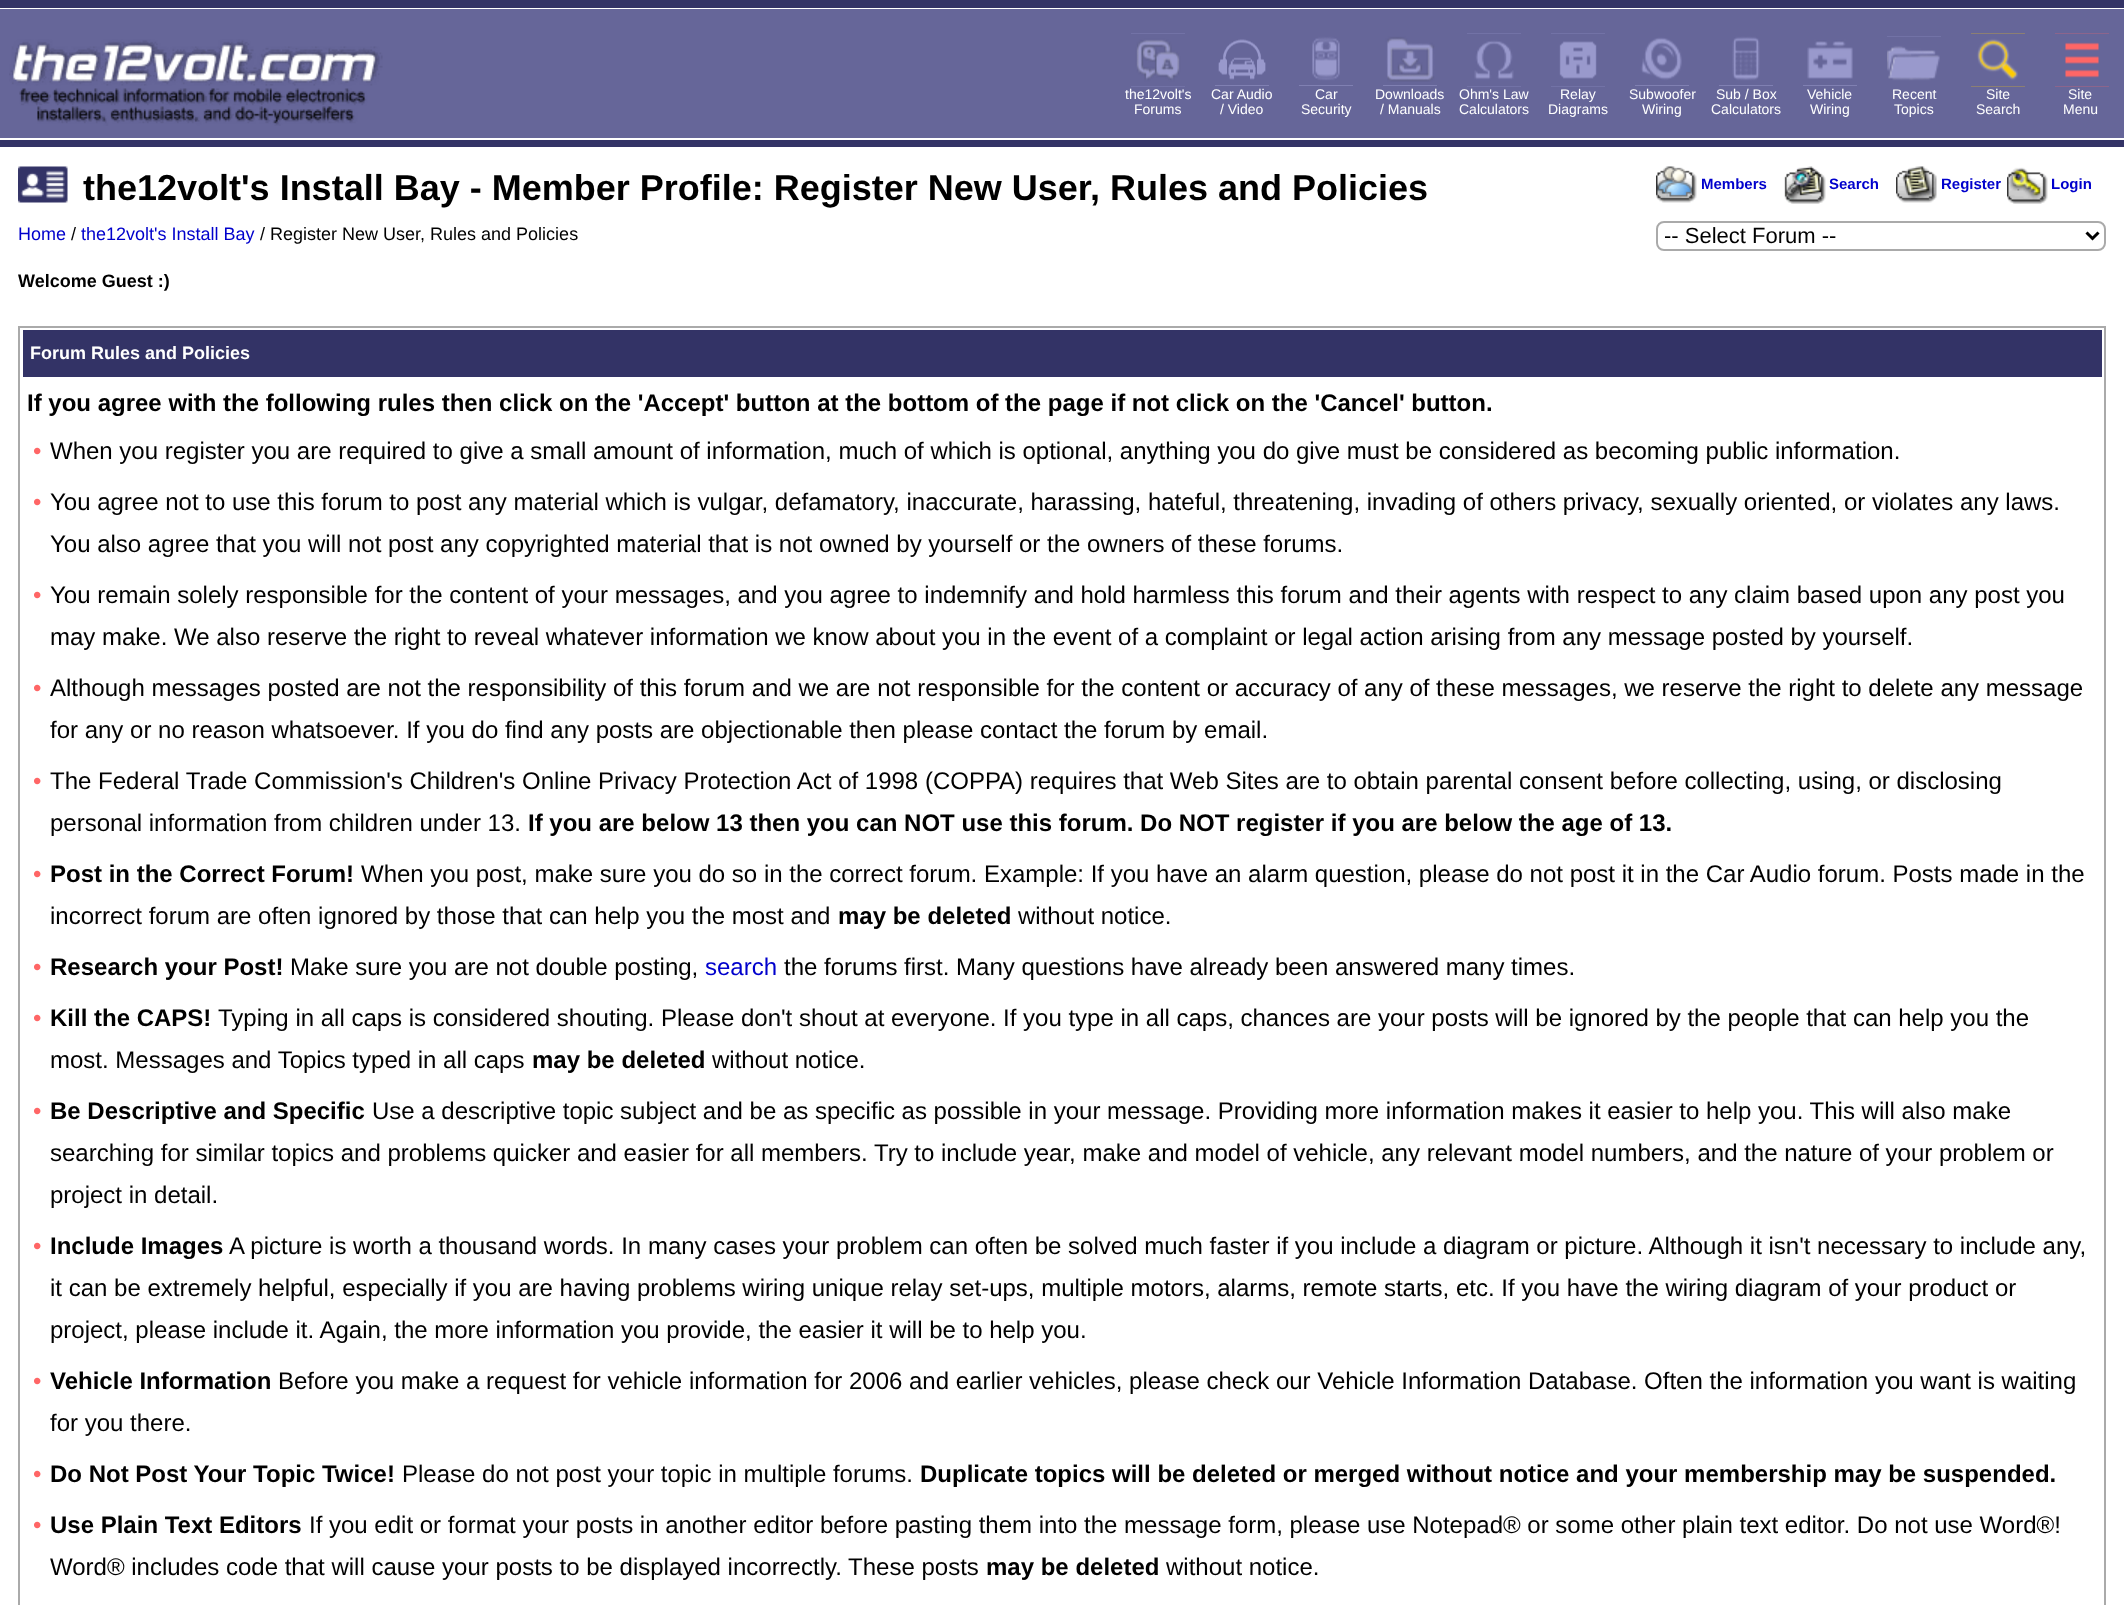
<svg xmlns="http://www.w3.org/2000/svg" width="2124" height="1605" viewBox="0 0 2124 1605">
  <rect width="100%" height="100%" fill="#ffffff"/>
  <rect x="0" y="0" width="2124" height="8" fill="#333366"/>
  <rect x="0" y="9" width="2124" height="129" fill="#666699"/>
  <image x="9" y="39" width="374" height="87" href="img1.png"/>
  <rect x="1131" y="33" width="54" height="54" fill="#9999cc"/>
  <image x="1131" y="33" width="54" height="54" href="img2.png"/>
  <text x="1125" y="99" font-family="Liberation Sans" font-size="14" fill="#ffffff">the12volt's</text>
  <text x="1134" y="114" font-family="Liberation Sans" font-size="14" fill="#ffffff">Forums</text>
  <rect x="1215" y="39" width="54" height="47" fill="#9999cc"/>
  <image x="1215" y="33" width="54" height="53" href="img3.png"/>
  <text x="1211" y="99" font-family="Liberation Sans" font-size="14" fill="#ffffff">Car Audio</text>
  <text x="1220" y="114" font-family="Liberation Sans" font-size="14" fill="#ffffff">/ Video</text>
  <rect x="1299" y="36" width="54" height="50" fill="#9999cc"/>
  <image x="1299" y="33" width="54" height="53" href="img4.png"/>
  <text x="1315" y="99" font-family="Liberation Sans" font-size="14" fill="#ffffff">Car</text>
  <text x="1301" y="114" font-family="Liberation Sans" font-size="14" fill="#ffffff">Security</text>
  <rect x="1383" y="38" width="54" height="48" fill="#9999cc"/>
  <image x="1383" y="33" width="54" height="53" href="img5.png"/>
  <text x="1375" y="99" font-family="Liberation Sans" font-size="14" fill="#ffffff">Downloads</text>
  <text x="1380" y="114" font-family="Liberation Sans" font-size="14" fill="#ffffff">/ Manuals</text>
  <rect x="1467" y="33" width="54" height="54" fill="#9999cc"/>
  <image x="1467" y="33" width="54" height="54" href="img6.png"/>
  <text x="1459" y="99" font-family="Liberation Sans" font-size="14" fill="#ffffff">Ohm's Law</text>
  <text x="1459" y="114" font-family="Liberation Sans" font-size="14" fill="#ffffff">Calculators</text>
  <rect x="1551" y="33" width="54" height="54" fill="#9999cc"/>
  <image x="1551" y="33" width="54" height="54" href="img7.png"/>
  <text x="1560" y="99" font-family="Liberation Sans" font-size="14" fill="#ffffff">Relay</text>
  <text x="1548" y="114" font-family="Liberation Sans" font-size="14" fill="#ffffff">Diagrams</text>
  <rect x="1635" y="36" width="54" height="50" fill="#9999cc"/>
  <image x="1635" y="33" width="54" height="53" href="img8.png"/>
  <text x="1629" y="99" font-family="Liberation Sans" font-size="14" fill="#ffffff">Subwoofer</text>
  <text x="1642" y="114" font-family="Liberation Sans" font-size="14" fill="#ffffff">Wiring</text>
  <rect x="1719" y="36" width="54" height="50" fill="#9999cc"/>
  <image x="1719" y="33" width="54" height="53" href="img9.png"/>
  <text x="1716" y="99" font-family="Liberation Sans" font-size="14" fill="#ffffff">Sub / Box</text>
  <text x="1711" y="114" font-family="Liberation Sans" font-size="14" fill="#ffffff">Calculators</text>
  <rect x="1803" y="39" width="54" height="47" fill="#9999cc"/>
  <image x="1803" y="33" width="54" height="53" href="img10.png"/>
  <text x="1807" y="99" font-family="Liberation Sans" font-size="14" fill="#ffffff">Vehicle</text>
  <text x="1810" y="114" font-family="Liberation Sans" font-size="14" fill="#ffffff">Wiring</text>
  <rect x="1887" y="36" width="54" height="45" fill="#9999cc"/>
  <image x="1887" y="36" width="54" height="51" href="img11.png"/>
  <text x="1892" y="99" font-family="Liberation Sans" font-size="14" fill="#ffffff">Recent</text>
  <text x="1894" y="114" font-family="Liberation Sans" font-size="14" fill="#ffffff">Topics</text>
  <rect x="1971" y="33" width="54" height="54" fill="#ffcc00"/>
  <image x="1971" y="33" width="54" height="54" href="img12.png"/>
  <text x="1986" y="99" font-family="Liberation Sans" font-size="14" fill="#ffffff">Site</text>
  <text x="1976" y="114" font-family="Liberation Sans" font-size="14" fill="#ffffff">Search</text>
  <rect x="2055" y="33" width="54" height="54" fill="#ff6666"/>
  <image x="2055" y="33" width="54" height="54" href="img13.png"/>
  <text x="2068" y="99" font-family="Liberation Sans" font-size="14" fill="#ffffff">Site</text>
  <text x="2063" y="114" font-family="Liberation Sans" font-size="14" fill="#ffffff">Menu</text>
  <rect x="0" y="140" width="2124" height="7" fill="#333366"/>
  <image x="18" y="166" width="50" height="37" href="img14.png"/>
  <text x="83" y="200" font-family="Liberation Sans" font-size="36" font-weight="bold" fill="#000000">the12volt's Install Bay - Member Profile: Register New User, Rules and Policies</text>
  <text x="18" y="240" font-family="Liberation Sans" font-size="18" fill="#0000cc">Home</text>
  <text x="71" y="240" font-family="Liberation Sans" font-size="18" fill="#000000">/</text>
  <text x="81" y="240" font-family="Liberation Sans" font-size="18" fill="#0000cc">the12volt's Install Bay</text>
  <text x="260" y="240" font-family="Liberation Sans" font-size="18" fill="#000000">/ Register New User, Rules and Policies</text>
  <text x="18" y="287" font-family="Liberation Sans" font-size="18" font-weight="bold" fill="#000000">Welcome Guest :)</text>
  <image x="1656" y="166" width="41" height="37" href="img15.png"/>
  <text x="1701" y="189" font-family="Liberation Sans" font-size="15" font-weight="bold" fill="#0000cc">Members</text>
  <image x="1784" y="166" width="42" height="38" href="img16.png"/>
  <text x="1829" y="189" font-family="Liberation Sans" font-size="15" font-weight="bold" fill="#0000cc">Search</text>
  <image x="1896" y="166" width="41" height="37" href="img17.png"/>
  <text x="1941" y="189" font-family="Liberation Sans" font-size="15" font-weight="bold" fill="#0000cc">Register</text>
  <image x="2007" y="167" width="41" height="37" href="img18.png"/>
  <text x="2051" y="189" font-family="Liberation Sans" font-size="15" font-weight="bold" fill="#0000cc">Login</text>
  <rect x="1657" y="222" width="448" height="28" rx="7" fill="none" stroke="#aaaaaa" stroke-width="2"/>
  <path d="M2086.5 232.5L2092.5 238.5L2098.5 232.5" fill="none" stroke="#000000" stroke-width="3"/>
  <text x="1664" y="243" font-family="Liberation Sans" font-size="22" fill="#000000">-- Select Forum --</text>
  <rect x="19" y="327" width="2086" height="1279" fill="none" stroke="#aaaaaa" stroke-width="2"/>
  <rect x="23" y="330" width="2079" height="47" fill="#333366"/>
  <text x="30" y="359" font-family="Liberation Sans" font-size="18" font-weight="bold" fill="#ffffff">Forum Rules and Policies</text>
  <text x="27" y="411" font-family="Liberation Sans" font-size="24" font-weight="bold" fill="#000000">If you agree with the following rules then click on the 'Accept' button at the bottom of the page if not click on the 'Cancel' button.</text>
  <text x="33" y="459" font-family="Liberation Sans" font-size="24" fill="#ff6666">•</text>
  <text x="50" y="459" font-family="Liberation Sans" font-size="24" fill="#000000">When you register you are required to give a small amount of information, much of which is optional, anything you do give must be considered as becoming public information.</text>
  <text x="33" y="510" font-family="Liberation Sans" font-size="24" fill="#ff6666">•</text>
  <text x="50" y="510" font-family="Liberation Sans" font-size="24" fill="#000000">You agree not to use this forum to post any material which is vulgar, defamatory, inaccurate, harassing, hateful, threatening, invading of others privacy, sexually oriented, or violates any laws.</text>
  <text x="50" y="552" font-family="Liberation Sans" font-size="24" fill="#000000">You also agree that you will not post any copyrighted material that is not owned by yourself or the owners of these forums.</text>
  <text x="33" y="603" font-family="Liberation Sans" font-size="24" fill="#ff6666">•</text>
  <text x="50" y="603" font-family="Liberation Sans" font-size="24" fill="#000000">You remain solely responsible for the content of your messages, and you agree to indemnify and hold harmless this forum and their agents with respect to any claim based upon any post you</text>
  <text x="50" y="645" font-family="Liberation Sans" font-size="24" fill="#000000">may make. We also reserve the right to reveal whatever information we know about you in the event of a complaint or legal action arising from any message posted by yourself.</text>
  <text x="33" y="696" font-family="Liberation Sans" font-size="24" fill="#ff6666">•</text>
  <text x="50" y="696" font-family="Liberation Sans" font-size="24" fill="#000000">Although messages posted are not the responsibility of this forum and we are not responsible for the content or accuracy of any of these messages, we reserve the right to delete any message</text>
  <text x="50" y="738" font-family="Liberation Sans" font-size="24" fill="#000000">for any or no reason whatsoever. If you do find any posts are objectionable then please contact the forum by email.</text>
  <text x="33" y="789" font-family="Liberation Sans" font-size="24" fill="#ff6666">•</text>
  <text x="50" y="789" font-family="Liberation Sans" font-size="24" fill="#000000">The Federal Trade Commission's Children's Online Privacy Protection Act of 1998 (COPPA) requires that Web Sites are to obtain parental consent before collecting, using, or disclosing</text>
  <text x="50" y="831" font-family="Liberation Sans" font-size="24" fill="#000000">personal information from children under 13.</text>
  <text x="528" y="831" font-family="Liberation Sans" font-size="24" font-weight="bold" fill="#000000">If you are below 13 then you can NOT use this forum. Do NOT register if you are below the age of 13.</text>
  <text x="33" y="882" font-family="Liberation Sans" font-size="24" fill="#ff6666">•</text>
  <text x="50" y="882" font-family="Liberation Sans" font-size="24" font-weight="bold" fill="#000000">Post in the Correct Forum!</text>
  <text x="361" y="882" font-family="Liberation Sans" font-size="24" fill="#000000">When you post, make sure you do so in the correct forum. Example: If you have an alarm question, please do not post it in the Car Audio forum. Posts made in the</text>
  <text x="50" y="924" font-family="Liberation Sans" font-size="24" fill="#000000">incorrect forum are often ignored by those that can help you the most and</text>
  <text x="838" y="924" font-family="Liberation Sans" font-size="24" font-weight="bold" fill="#000000">may be deleted</text>
  <text x="1018" y="924" font-family="Liberation Sans" font-size="24" fill="#000000">without notice.</text>
  <text x="33" y="975" font-family="Liberation Sans" font-size="24" fill="#ff6666">•</text>
  <text x="50" y="975" font-family="Liberation Sans" font-size="24" font-weight="bold" fill="#000000">Research your Post!</text>
  <text x="290" y="975" font-family="Liberation Sans" font-size="24" fill="#000000">Make sure you are not double posting,</text>
  <text x="705" y="975" font-family="Liberation Sans" font-size="24" fill="#0000cc">search</text>
  <text x="784" y="975" font-family="Liberation Sans" font-size="24" fill="#000000">the forums first. Many questions have already been answered many times.</text>
  <text x="33" y="1026" font-family="Liberation Sans" font-size="24" fill="#ff6666">•</text>
  <text x="50" y="1026" font-family="Liberation Sans" font-size="24" font-weight="bold" fill="#000000">Kill the CAPS!</text>
  <text x="218" y="1026" font-family="Liberation Sans" font-size="24" fill="#000000">Typing in all caps is considered shouting. Please don't shout at everyone. If you type in all caps, chances are your posts will be ignored by the people that can help you the</text>
  <text x="50" y="1068" font-family="Liberation Sans" font-size="24" fill="#000000">most. Messages and Topics typed in all caps</text>
  <text x="532" y="1068" font-family="Liberation Sans" font-size="24" font-weight="bold" fill="#000000">may be deleted</text>
  <text x="712" y="1068" font-family="Liberation Sans" font-size="24" fill="#000000">without notice.</text>
  <text x="33" y="1119" font-family="Liberation Sans" font-size="24" fill="#ff6666">•</text>
  <text x="50" y="1119" font-family="Liberation Sans" font-size="24" font-weight="bold" fill="#000000">Be Descriptive and Specific</text>
  <text x="372" y="1119" font-family="Liberation Sans" font-size="24" fill="#000000">Use a descriptive topic subject and be as specific as possible in your message. Providing more information makes it easier to help you. This will also make</text>
  <text x="50" y="1161" font-family="Liberation Sans" font-size="24" fill="#000000">searching for similar topics and problems quicker and easier for all members. Try to include year, make and model of vehicle, any relevant model numbers, and the nature of your problem or</text>
  <text x="50" y="1203" font-family="Liberation Sans" font-size="24" fill="#000000">project in detail.</text>
  <text x="33" y="1254" font-family="Liberation Sans" font-size="24" fill="#ff6666">•</text>
  <text x="50" y="1254" font-family="Liberation Sans" font-size="24" font-weight="bold" fill="#000000">Include Images</text>
  <text x="229" y="1254" font-family="Liberation Sans" font-size="24" fill="#000000">A picture is worth a thousand words. In many cases your problem can often be solved much faster if you include a diagram or picture. Although it isn't necessary to include any,</text>
  <text x="50" y="1296" font-family="Liberation Sans" font-size="24" fill="#000000">it can be extremely helpful, especially if you are having problems wiring unique relay set-ups, multiple motors, alarms, remote starts, etc. If you have the wiring diagram of your product or</text>
  <text x="50" y="1338" font-family="Liberation Sans" font-size="24" fill="#000000">project, please include it. Again, the more information you provide, the easier it will be to help you.</text>
  <text x="33" y="1389" font-family="Liberation Sans" font-size="24" fill="#ff6666">•</text>
  <text x="50" y="1389" font-family="Liberation Sans" font-size="24" font-weight="bold" fill="#000000">Vehicle Information</text>
  <text x="278" y="1389" font-family="Liberation Sans" font-size="24" fill="#000000">Before you make a request for vehicle information for 2006 and earlier vehicles, please check our Vehicle Information Database. Often the information you want is waiting</text>
  <text x="50" y="1431" font-family="Liberation Sans" font-size="24" fill="#000000">for you there.</text>
  <text x="33" y="1482" font-family="Liberation Sans" font-size="24" fill="#ff6666">•</text>
  <text x="50" y="1482" font-family="Liberation Sans" font-size="24" font-weight="bold" fill="#000000">Do Not Post Your Topic Twice!</text>
  <text x="402" y="1482" font-family="Liberation Sans" font-size="24" fill="#000000">Please do not post your topic in multiple forums.</text>
  <text x="920" y="1482" font-family="Liberation Sans" font-size="24" font-weight="bold" fill="#000000">Duplicate topics will be deleted or merged without notice and your membership may be suspended.</text>
  <text x="33" y="1533" font-family="Liberation Sans" font-size="24" fill="#ff6666">•</text>
  <text x="50" y="1533" font-family="Liberation Sans" font-size="24" font-weight="bold" fill="#000000">Use Plain Text Editors</text>
  <text x="309" y="1533" font-family="Liberation Sans" font-size="24" fill="#000000">If you edit or format your posts in another editor before pasting them into the message form, please use Notepad® or some other plain text editor. Do not use Word®!</text>
  <text x="50" y="1575" font-family="Liberation Sans" font-size="24" fill="#000000">Word® includes code that will cause your posts to be displayed incorrectly. These posts</text>
  <text x="986" y="1575" font-family="Liberation Sans" font-size="24" font-weight="bold" fill="#000000">may be deleted</text>
  <text x="1166" y="1575" font-family="Liberation Sans" font-size="24" fill="#000000">without notice.</text>
</svg>
